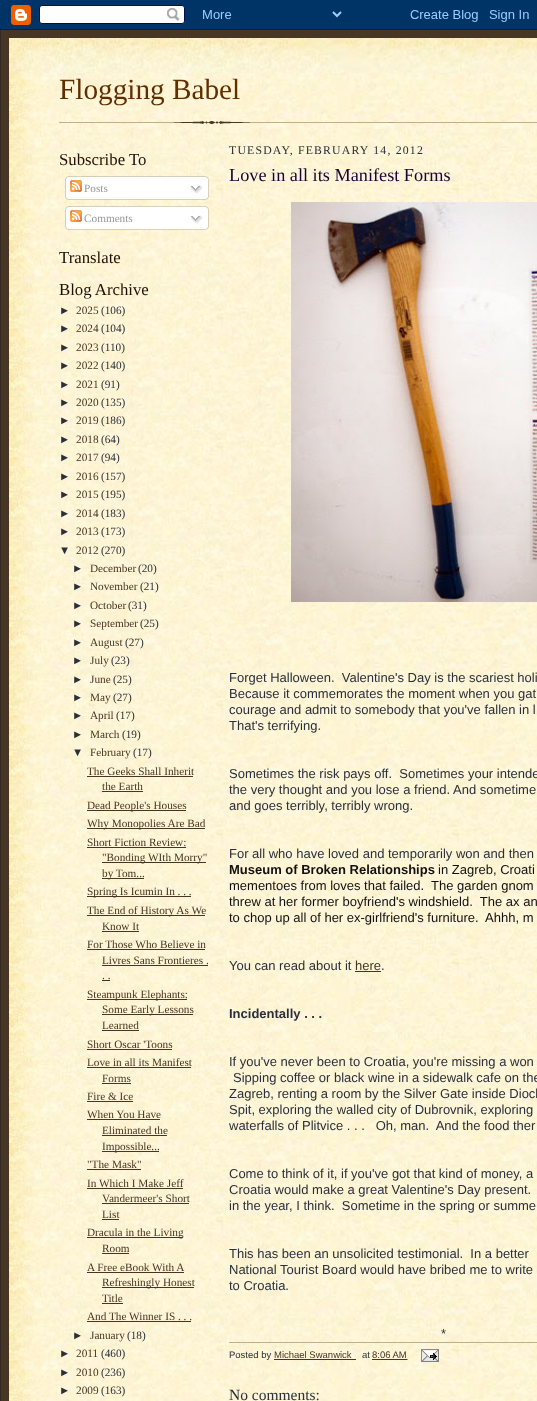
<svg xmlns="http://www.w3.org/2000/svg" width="537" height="1401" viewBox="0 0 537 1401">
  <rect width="100%" height="100%" fill="#473624"/>
  <image x="0" y="0" width="537" height="30" href="img1.png"/>
  <rect x="0" y="30" width="1" height="1371" fill="#332a24"/>
  <image x="9" y="38" width="528" height="35" href="img2.png"/>
  <image x="9" y="73" width="528" height="1328" href="img3.png"/>
  <image x="59" y="121" width="478" height="3" href="img4.png"/>
  <text x="59" y="99" font-family="Liberation Serif" font-size="29.25" fill="#612e00">Flogging Babel</text>
  <text x="59" y="165" font-family="Liberation Serif" font-size="16.75" fill="#211104">Subscribe To</text>
  <image x="65" y="176" width="144" height="21" href="img5.png"/>
  <image x="70" y="180" width="12" height="12" href="img6.png"/>
  <text x="84" y="192" font-family="Liberation Serif" font-size="11.25" fill="#999999">Posts</text>
  <image x="190" y="185" width="13" height="9" href="img7.png"/>
  <image x="65" y="197" width="144" height="3" href="img8.png"/>
  <image x="65" y="206" width="144" height="21" href="img9.png"/>
  <image x="70" y="210" width="12" height="12" href="img6.png"/>
  <text x="84" y="222" font-family="Liberation Serif" font-size="11.25" fill="#999999">Comments</text>
  <image x="190" y="215" width="13" height="9" href="img7.png"/>
  <image x="65" y="227" width="144" height="3" href="img10.png"/>
  <text x="59" y="263" font-family="Liberation Serif" font-size="16.75" fill="#211104">Translate</text>
  <text x="59" y="295" font-family="Liberation Serif" font-size="16.75" fill="#211104">Blog Archive</text>
  <text x="59" y="314" font-family="Liberation Sans" font-size="11.25" fill="#29303b">►</text>
  <text x="76" y="314" font-family="Liberation Serif" font-size="11.25" fill="#473624">2025</text>
  <text x="101" y="314" font-family="Liberation Serif" font-size="11.25" fill="#29303b">(106)</text>
  <text x="59" y="332" font-family="Liberation Sans" font-size="11.25" fill="#29303b">►</text>
  <text x="76" y="332" font-family="Liberation Serif" font-size="11.25" fill="#473624">2024</text>
  <text x="101" y="332" font-family="Liberation Serif" font-size="11.25" fill="#29303b">(104)</text>
  <text x="59" y="351" font-family="Liberation Sans" font-size="11.25" fill="#29303b">►</text>
  <text x="76" y="351" font-family="Liberation Serif" font-size="11.25" fill="#473624">2023</text>
  <text x="101" y="351" font-family="Liberation Serif" font-size="11.25" fill="#29303b">(110)</text>
  <text x="59" y="369" font-family="Liberation Sans" font-size="11.25" fill="#29303b">►</text>
  <text x="76" y="369" font-family="Liberation Serif" font-size="11.25" fill="#473624">2022</text>
  <text x="101" y="369" font-family="Liberation Serif" font-size="11.25" fill="#29303b">(140)</text>
  <text x="59" y="388" font-family="Liberation Sans" font-size="11.25" fill="#29303b">►</text>
  <text x="76" y="388" font-family="Liberation Serif" font-size="11.25" fill="#473624">2021</text>
  <text x="101" y="388" font-family="Liberation Serif" font-size="11.25" fill="#29303b">(91)</text>
  <text x="59" y="406" font-family="Liberation Sans" font-size="11.25" fill="#29303b">►</text>
  <text x="76" y="406" font-family="Liberation Serif" font-size="11.25" fill="#473624">2020</text>
  <text x="101" y="406" font-family="Liberation Serif" font-size="11.25" fill="#29303b">(135)</text>
  <text x="59" y="424" font-family="Liberation Sans" font-size="11.25" fill="#29303b">►</text>
  <text x="76" y="424" font-family="Liberation Serif" font-size="11.25" fill="#473624">2019</text>
  <text x="101" y="424" font-family="Liberation Serif" font-size="11.25" fill="#29303b">(186)</text>
  <text x="59" y="443" font-family="Liberation Sans" font-size="11.25" fill="#29303b">►</text>
  <text x="76" y="443" font-family="Liberation Serif" font-size="11.25" fill="#473624">2018</text>
  <text x="101" y="443" font-family="Liberation Serif" font-size="11.25" fill="#29303b">(64)</text>
  <text x="59" y="461" font-family="Liberation Sans" font-size="11.25" fill="#29303b">►</text>
  <text x="76" y="461" font-family="Liberation Serif" font-size="11.25" fill="#473624">2017</text>
  <text x="101" y="461" font-family="Liberation Serif" font-size="11.25" fill="#29303b">(94)</text>
  <text x="59" y="480" font-family="Liberation Sans" font-size="11.25" fill="#29303b">►</text>
  <text x="76" y="480" font-family="Liberation Serif" font-size="11.25" fill="#473624">2016</text>
  <text x="101" y="480" font-family="Liberation Serif" font-size="11.25" fill="#29303b">(157)</text>
  <text x="59" y="498" font-family="Liberation Sans" font-size="11.25" fill="#29303b">►</text>
  <text x="76" y="498" font-family="Liberation Serif" font-size="11.25" fill="#473624">2015</text>
  <text x="101" y="498" font-family="Liberation Serif" font-size="11.25" fill="#29303b">(195)</text>
  <text x="59" y="517" font-family="Liberation Sans" font-size="11.25" fill="#29303b">►</text>
  <text x="76" y="517" font-family="Liberation Serif" font-size="11.25" fill="#473624">2014</text>
  <text x="101" y="517" font-family="Liberation Serif" font-size="11.25" fill="#29303b">(183)</text>
  <text x="59" y="535" font-family="Liberation Sans" font-size="11.25" fill="#29303b">►</text>
  <text x="76" y="535" font-family="Liberation Serif" font-size="11.25" fill="#473624">2013</text>
  <text x="101" y="535" font-family="Liberation Serif" font-size="11.25" fill="#29303b">(173)</text>
  <text x="59" y="554" font-family="Liberation Sans" font-size="11.25" fill="#29303b">▼</text>
  <text x="76" y="554" font-family="Liberation Serif" font-size="11.25" fill="#473624">2012</text>
  <text x="101" y="554" font-family="Liberation Serif" font-size="11.25" fill="#29303b">(270)</text>
  <text x="72" y="572" font-family="Liberation Sans" font-size="11.25" fill="#29303b">►</text>
  <text x="90" y="572" font-family="Liberation Serif" font-size="11.25" fill="#473624">December</text>
  <text x="138" y="572" font-family="Liberation Serif" font-size="11.25" fill="#29303b">(20)</text>
  <text x="72" y="590" font-family="Liberation Sans" font-size="11.25" fill="#29303b">►</text>
  <text x="90" y="590" font-family="Liberation Serif" font-size="11.25" fill="#473624">November</text>
  <text x="140" y="590" font-family="Liberation Serif" font-size="11.25" fill="#29303b">(21)</text>
  <text x="72" y="609" font-family="Liberation Sans" font-size="11.25" fill="#29303b">►</text>
  <text x="90" y="609" font-family="Liberation Serif" font-size="11.25" fill="#473624">October</text>
  <text x="128" y="609" font-family="Liberation Serif" font-size="11.25" fill="#29303b">(31)</text>
  <text x="72" y="627" font-family="Liberation Sans" font-size="11.25" fill="#29303b">►</text>
  <text x="90" y="627" font-family="Liberation Serif" font-size="11.25" fill="#473624">September</text>
  <text x="140" y="627" font-family="Liberation Serif" font-size="11.25" fill="#29303b">(25)</text>
  <text x="72" y="646" font-family="Liberation Sans" font-size="11.25" fill="#29303b">►</text>
  <text x="90" y="646" font-family="Liberation Serif" font-size="11.25" fill="#473624">August</text>
  <text x="125" y="646" font-family="Liberation Serif" font-size="11.25" fill="#29303b">(27)</text>
  <text x="72" y="664" font-family="Liberation Sans" font-size="11.25" fill="#29303b">►</text>
  <text x="90" y="664" font-family="Liberation Serif" font-size="11.25" fill="#473624">July</text>
  <text x="111" y="664" font-family="Liberation Serif" font-size="11.25" fill="#29303b">(23)</text>
  <text x="72" y="683" font-family="Liberation Sans" font-size="11.25" fill="#29303b">►</text>
  <text x="90" y="683" font-family="Liberation Serif" font-size="11.25" fill="#473624">June</text>
  <text x="113" y="683" font-family="Liberation Serif" font-size="11.25" fill="#29303b">(25)</text>
  <text x="72" y="701" font-family="Liberation Sans" font-size="11.25" fill="#29303b">►</text>
  <text x="90" y="701" font-family="Liberation Serif" font-size="11.25" fill="#473624">May</text>
  <text x="113" y="701" font-family="Liberation Serif" font-size="11.25" fill="#29303b">(27)</text>
  <text x="72" y="719" font-family="Liberation Sans" font-size="11.25" fill="#29303b">►</text>
  <text x="90" y="719" font-family="Liberation Serif" font-size="11.25" fill="#473624">April</text>
  <text x="116" y="719" font-family="Liberation Serif" font-size="11.25" fill="#29303b">(17)</text>
  <text x="72" y="738" font-family="Liberation Sans" font-size="11.25" fill="#29303b">►</text>
  <text x="90" y="738" font-family="Liberation Serif" font-size="11.25" fill="#473624">March</text>
  <text x="122" y="738" font-family="Liberation Serif" font-size="11.25" fill="#29303b">(19)</text>
  <text x="72" y="756" font-family="Liberation Sans" font-size="11.25" fill="#29303b">▼</text>
  <text x="90" y="756" font-family="Liberation Serif" font-size="11.25" fill="#473624">February</text>
  <text x="133" y="756" font-family="Liberation Serif" font-size="11.25" fill="#29303b">(17)</text>
  <text x="87" y="775" font-family="Liberation Serif" font-size="11.25" fill="#473624">The Geeks Shall Inherit</text>
  <rect x="87" y="776" width="106" height="1" fill="#473624"/>
  <text x="102" y="790" font-family="Liberation Serif" font-size="11.25" fill="#473624">the Earth</text>
  <rect x="102" y="791" width="41" height="1" fill="#473624"/>
  <rect x="87" y="810" width="99" height="1" fill="#473624"/>
  <text x="87" y="809" font-family="Liberation Serif" font-size="11.25" fill="#473624">Dead People's Houses</text>
  <rect x="87" y="828" width="118" height="1" fill="#473624"/>
  <text x="87" y="827" font-family="Liberation Serif" font-size="11.25" fill="#473624">Why Monopolies Are Bad</text>
  <text x="87" y="846" font-family="Liberation Serif" font-size="11.25" fill="#473624">Short Fiction Review:</text>
  <rect x="87" y="847" width="99" height="1" fill="#473624"/>
  <rect x="102" y="862" width="104" height="1" fill="#473624"/>
  <text x="102" y="861" font-family="Liberation Serif" font-size="11.25" fill="#473624">"Bonding WIth Morry"</text>
  <rect x="102" y="878" width="42" height="1" fill="#473624"/>
  <text x="102" y="877" font-family="Liberation Serif" font-size="11.25" fill="#473624">by Tom...</text>
  <rect x="87" y="896" width="104" height="1" fill="#473624"/>
  <text x="87" y="895" font-family="Liberation Serif" font-size="11.25" fill="#473624">Spring Is Icumin In . . .</text>
  <rect x="87" y="915" width="118" height="1" fill="#473624"/>
  <text x="87" y="914" font-family="Liberation Serif" font-size="11.25" fill="#473624">The End of History As We</text>
  <text x="102" y="930" font-family="Liberation Serif" font-size="11.25" fill="#473624">Know It</text>
  <rect x="102" y="931" width="37" height="1" fill="#473624"/>
  <text x="87" y="948" font-family="Liberation Serif" font-size="11.25" fill="#473624">For Those Who Believe in</text>
  <rect x="87" y="949" width="118" height="1" fill="#473624"/>
  <text x="102" y="964" font-family="Liberation Serif" font-size="11.25" fill="#473624">Livres Sans Frontieres .</text>
  <rect x="102" y="965" width="106" height="1" fill="#473624"/>
  <text x="102" y="979" font-family="Liberation Serif" font-size="11.25" fill="#473624">. .</text>
  <rect x="102" y="980" width="8" height="1" fill="#473624"/>
  <rect x="87" y="999" width="100" height="1" fill="#473624"/>
  <text x="87" y="998" font-family="Liberation Serif" font-size="11.25" fill="#473624">Steampunk Elephants:</text>
  <rect x="102" y="1014" width="91" height="1" fill="#473624"/>
  <text x="102" y="1013" font-family="Liberation Serif" font-size="11.25" fill="#473624">Some Early Lessons</text>
  <text x="102" y="1029" font-family="Liberation Serif" font-size="11.25" fill="#473624">Learned</text>
  <rect x="102" y="1030" width="37" height="1" fill="#473624"/>
  <text x="87" y="1048" font-family="Liberation Serif" font-size="11.25" fill="#473624">Short Oscar 'Toons</text>
  <rect x="87" y="1049" width="85" height="1" fill="#473624"/>
  <text x="87" y="1066" font-family="Liberation Serif" font-size="11.25" fill="#473624">Love in all its Manifest</text>
  <rect x="87" y="1067" width="104" height="1" fill="#473624"/>
  <text x="102" y="1082" font-family="Liberation Serif" font-size="11.25" fill="#473624">Forms</text>
  <rect x="102" y="1083" width="29" height="1" fill="#473624"/>
  <text x="87" y="1100" font-family="Liberation Serif" font-size="11.25" fill="#473624">Fire &amp; Ice</text>
  <rect x="87" y="1101" width="46" height="1" fill="#473624"/>
  <text x="87" y="1118" font-family="Liberation Serif" font-size="11.25" fill="#473624">When You Have</text>
  <rect x="87" y="1119" width="73" height="1" fill="#473624"/>
  <text x="102" y="1134" font-family="Liberation Serif" font-size="11.25" fill="#473624">Eliminated the</text>
  <rect x="102" y="1135" width="65" height="1" fill="#473624"/>
  <rect x="102" y="1151" width="57" height="1" fill="#473624"/>
  <text x="102" y="1150" font-family="Liberation Serif" font-size="11.25" fill="#473624">Impossible...</text>
  <text x="87" y="1168" font-family="Liberation Serif" font-size="11.25" fill="#473624">"The Mask"</text>
  <rect x="87" y="1169" width="54" height="1" fill="#473624"/>
  <text x="87" y="1187" font-family="Liberation Serif" font-size="11.25" fill="#473624">In Which I Make Jeff</text>
  <rect x="87" y="1188" width="96" height="1" fill="#473624"/>
  <text x="102" y="1202" font-family="Liberation Serif" font-size="11.25" fill="#473624">Vandermeer's Short</text>
  <rect x="102" y="1203" width="87" height="1" fill="#473624"/>
  <text x="102" y="1218" font-family="Liberation Serif" font-size="11.25" fill="#473624">List</text>
  <rect x="102" y="1219" width="17" height="1" fill="#473624"/>
  <rect x="87" y="1237" width="96" height="1" fill="#473624"/>
  <text x="87" y="1236" font-family="Liberation Serif" font-size="11.25" fill="#473624">Dracula in the Living</text>
  <text x="102" y="1252" font-family="Liberation Serif" font-size="11.25" fill="#473624">Room</text>
  <rect x="102" y="1253" width="27" height="1" fill="#473624"/>
  <text x="87" y="1271" font-family="Liberation Serif" font-size="11.25" fill="#473624">A Free eBook With A</text>
  <rect x="87" y="1272" width="97" height="1" fill="#473624"/>
  <rect x="102" y="1287" width="92" height="1" fill="#473624"/>
  <text x="102" y="1286" font-family="Liberation Serif" font-size="11.25" fill="#473624">Refreshingly Honest</text>
  <text x="102" y="1302" font-family="Liberation Serif" font-size="11.25" fill="#473624">Title</text>
  <rect x="102" y="1303" width="21" height="1" fill="#473624"/>
  <text x="87" y="1320" font-family="Liberation Serif" font-size="11.25" fill="#473624">And The Winner IS . . .</text>
  <rect x="87" y="1321" width="104" height="1" fill="#473624"/>
  <text x="72" y="1339" font-family="Liberation Sans" font-size="11.25" fill="#29303b">►</text>
  <text x="90" y="1339" font-family="Liberation Serif" font-size="11.25" fill="#473624">January</text>
  <text x="127" y="1339" font-family="Liberation Serif" font-size="11.25" fill="#29303b">(18)</text>
  <text x="59" y="1357" font-family="Liberation Sans" font-size="11.25" fill="#29303b">►</text>
  <text x="76" y="1357" font-family="Liberation Serif" font-size="11.25" fill="#473624">2011</text>
  <text x="101" y="1357" font-family="Liberation Serif" font-size="11.25" fill="#29303b">(460)</text>
  <text x="59" y="1376" font-family="Liberation Sans" font-size="11.25" fill="#29303b">►</text>
  <text x="76" y="1376" font-family="Liberation Serif" font-size="11.25" fill="#473624">2010</text>
  <text x="101" y="1376" font-family="Liberation Serif" font-size="11.25" fill="#29303b">(236)</text>
  <text x="59" y="1394" font-family="Liberation Sans" font-size="11.25" fill="#29303b">►</text>
  <text x="76" y="1394" font-family="Liberation Serif" font-size="11.25" fill="#473624">2009</text>
  <text x="101" y="1394" font-family="Liberation Serif" font-size="11.25" fill="#29303b">(163)</text>
  <text x="229" y="154" font-family="Liberation Serif" font-size="11.75" letter-spacing="1.2" fill="#29303b">TUESDAY, FEBRUARY 14, 2012</text>
  <text x="229" y="181" font-family="Liberation Serif" font-size="18.25" fill="#1b0431">Love in all its Manifest Forms</text>
  <image x="291" y="202" width="246" height="400" href="img11.png"/>
  <text x="229" y="682" font-family="Liberation Sans" font-size="13" fill="#29303b" xml:space="preserve">Forget Halloween.  Valentine's Day is the scariest holi</text>
  <text x="229" y="698" font-family="Liberation Sans" font-size="13" fill="#29303b">Because it commemorates the moment when you gat</text>
  <text x="229" y="714" font-family="Liberation Sans" font-size="13" fill="#29303b">courage and admit to somebody that you've fallen in l</text>
  <text x="229" y="730" font-family="Liberation Sans" font-size="13" fill="#29303b">That's terrifying.</text>
  <text x="229" y="778" font-family="Liberation Sans" font-size="13" fill="#29303b" xml:space="preserve">Sometimes the risk pays off.  Sometimes your intende</text>
  <text x="229" y="794" font-family="Liberation Sans" font-size="13" fill="#29303b">the very thought and you lose a friend. And sometime</text>
  <text x="229" y="810" font-family="Liberation Sans" font-size="13" fill="#29303b">and goes terribly, terribly wrong.</text>
  <text x="229" y="858" font-family="Liberation Sans" font-size="13" fill="#29303b">For all who have loved and temporarily won and then</text>
  <text x="229" y="874" font-family="Liberation Sans" font-size="13" font-weight="bold" fill="#111111">Museum of Broken Relationships</text>
  <text x="438" y="874" font-family="Liberation Sans" font-size="13" fill="#111111">in Zagreb, Croati</text>
  <text x="229" y="890" font-family="Liberation Sans" font-size="13" fill="#111111" xml:space="preserve">mementoes from loves that failed.  The garden gnom</text>
  <text x="229" y="906" font-family="Liberation Sans" font-size="13" fill="#111111" xml:space="preserve">threw at her former boyfriend's windshield.  The ax an</text>
  <text x="229" y="922" font-family="Liberation Sans" font-size="13" fill="#111111" xml:space="preserve">to chop up all of her ex-girlfriend's furniture.  Ahhh, m</text>
  <text x="229" y="970" font-family="Liberation Sans" font-size="13" fill="#29303b">You can read about it</text>
  <text x="355" y="970" font-family="Liberation Sans" font-size="13" fill="#473624">here</text>
  <text x="381" y="970" font-family="Liberation Sans" font-size="13" fill="#29303b">.</text>
  <rect x="355" y="971" width="26" height="1" fill="#473624"/>
  <text x="229" y="1018" font-family="Liberation Sans" font-size="13" font-weight="bold" fill="#29303b">Incidentally . . .</text>
  <text x="229" y="1066" font-family="Liberation Sans" font-size="13" fill="#29303b">If you've never been to Croatia, you're missing a won</text>
  <text x="233" y="1082" font-family="Liberation Sans" font-size="13" fill="#29303b">Sipping coffee or black wine in a sidewalk cafe on the</text>
  <text x="229" y="1098" font-family="Liberation Sans" font-size="13" fill="#29303b">Zagreb, renting a room by the Silver Gate inside Diocl</text>
  <text x="229" y="1114" font-family="Liberation Sans" font-size="13" fill="#29303b">Spit, exploring the walled city of Dubrovnik, exploring</text>
  <text x="229" y="1130" font-family="Liberation Sans" font-size="13" fill="#29303b" xml:space="preserve">waterfalls of Plitvice . . .   Oh, man.  And the food ther</text>
  <text x="229" y="1178" font-family="Liberation Sans" font-size="13" fill="#29303b">Come to think of it, if you've got that kind of money, a</text>
  <text x="229" y="1194" font-family="Liberation Sans" font-size="13" fill="#29303b">Croatia would make a great Valentine's Day present.</text>
  <text x="229" y="1210" font-family="Liberation Sans" font-size="13" fill="#29303b" xml:space="preserve">in the year, I think.  Sometime in the spring or summe</text>
  <text x="229" y="1258" font-family="Liberation Sans" font-size="13" fill="#29303b" xml:space="preserve">This has been an unsolicited testimonial.  In a better</text>
  <text x="229" y="1274" font-family="Liberation Sans" font-size="13" fill="#29303b">National Tourist Board would have bribed me to write</text>
  <text x="229" y="1290" font-family="Liberation Sans" font-size="13" fill="#29303b">to Croatia.</text>
  <text x="441" y="1338" font-family="Liberation Sans" font-size="13" fill="#29303b">*</text>
  <rect x="229" y="1342" width="308" height="1" fill="#bfb186"/>
  <text x="229" y="1358" font-family="Liberation Sans" font-size="9.5" fill="#29303b">Posted by</text>
  <text x="274" y="1358" font-family="Liberation Sans" font-size="9.5" fill="#473624">Michael Swanwick</text>
  <rect x="274" y="1359" width="82" height="1" fill="#473624"/>
  <text x="362" y="1358" font-family="Liberation Sans" font-size="9.5" fill="#29303b">at</text>
  <text x="372" y="1358" font-family="Liberation Sans" font-size="9.5" fill="#473624">8:06 AM</text>
  <path d="M372.5 1359.5H407.5" fill="none" stroke="#473624" stroke-dasharray="1 1"/>
  <rect x="372" y="1359" width="35" height="1" fill="#473624"/>
  <image x="421" y="1349" width="18" height="13" href="img12.png"/>
  <text x="229" y="1400" font-family="Liberation Serif" font-size="15.5" fill="#29303b">No comments:</text>
</svg>
